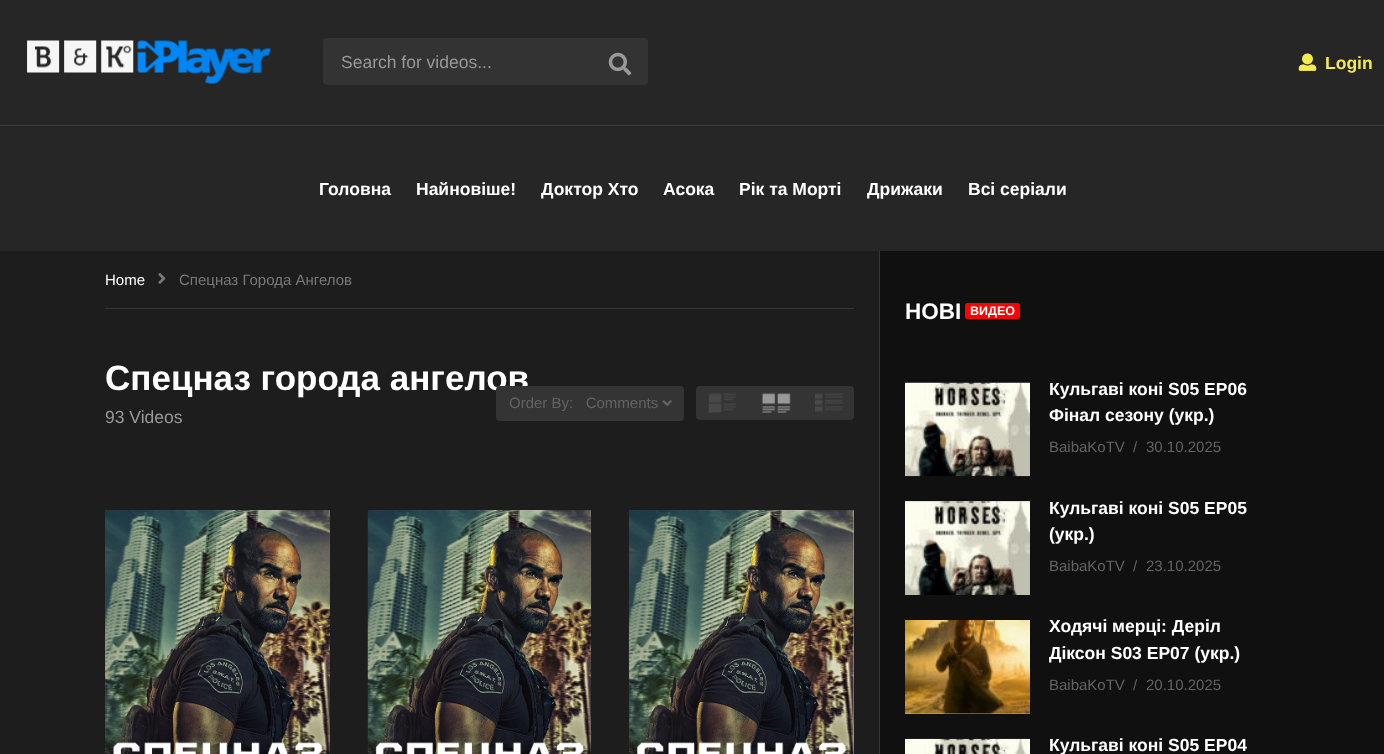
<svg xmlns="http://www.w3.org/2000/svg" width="1384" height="754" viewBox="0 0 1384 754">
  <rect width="100%" height="100%" fill="#1d1d1d"/>
  <rect x="0" y="0" width="1384" height="251" fill="#262626"/>
  <image x="27" y="40" width="244" height="44" href="img1.png"/>
  <rect x="323" y="38" width="325" height="47" rx="4" fill="#333333"/>
  <text x="341" y="68" font-family="Liberation Sans" font-size="17.5" fill="#999999">Search for videos...</text>
  <image x="608" y="52" width="24" height="24" href="img2.png"/>
  <image x="1298" y="53" width="19" height="18" href="img3.png"/>
  <text x="1325" y="69" font-family="Liberation Sans" font-size="17.5" font-weight="bold" fill="#f5eb4e">Login</text>
  <rect x="0" y="125" width="1384" height="1" fill="#3c3c3c"/>
  <text x="319" y="195" font-family="Liberation Sans" font-size="17.5" font-weight="bold" fill="#ffffff">Головна</text>
  <text x="416" y="195" font-family="Liberation Sans" font-size="17.5" font-weight="bold" fill="#ffffff">Найновіше!</text>
  <text x="541" y="195" font-family="Liberation Sans" font-size="17.5" font-weight="bold" fill="#ffffff">Доктор Хто</text>
  <text x="663" y="195" font-family="Liberation Sans" font-size="17.5" font-weight="bold" fill="#ffffff">Асока</text>
  <text x="739" y="195" font-family="Liberation Sans" font-size="17.5" font-weight="bold" fill="#ffffff">Рік та Морті</text>
  <text x="867" y="195" font-family="Liberation Sans" font-size="17.5" font-weight="bold" fill="#ffffff">Дрижаки</text>
  <text x="968" y="195" font-family="Liberation Sans" font-size="17.5" font-weight="bold" fill="#ffffff">Всі серіали</text>
  <rect x="879" y="251" width="1" height="503" fill="#363636"/>
  <rect x="105" y="308" width="749" height="1" fill="#363636"/>
  <text x="105" y="285" font-family="Liberation Sans" font-size="15" fill="#ffffff">Home</text>
  <image x="158" y="273" width="8" height="11" href="img4.png"/>
  <text x="179" y="285" font-family="Liberation Sans" font-size="15" fill="#787878">Спецназ Города Ангелов</text>
  <text x="105" y="390" font-family="Liberation Sans" font-size="35" font-weight="bold" fill="#ffffff">Спецназ города ангелов</text>
  <text x="105" y="423" font-family="Liberation Sans" font-size="17.5" fill="#999999">93 Videos</text>
  <rect x="496" y="386" width="188" height="35" rx="4" fill="#343434"/>
  <text x="509" y="408" font-family="Liberation Sans" font-size="15" fill="#636363" xml:space="preserve">Order By:   Comments</text>
  <image x="662" y="400" width="10" height="6" href="img5.png"/>
  <rect x="696" y="386" width="158" height="34" rx="4" fill="#343434"/>
  <image x="708" y="393" width="29" height="20" href="img6.png"/>
  <image x="761" y="393" width="30" height="20" href="img7.png"/>
  <image x="815" y="393" width="28" height="19" href="img8.png"/>
  <image x="105" y="510" width="225" height="244" href="img9.png"/>
  <image x="367" y="510" width="225" height="244" href="img10.png"/>
  <rect x="853" y="510" width="1" height="244" fill="#bcbcbc"/>
  <image x="628" y="510" width="226" height="244" href="img11.png"/>
  <rect x="880" y="251" width="504" height="503" fill="#101010"/>
  <text x="905" y="319" font-family="Liberation Sans" font-size="22.5" font-weight="bold" fill="#ffffff">НОВІ</text>
  <rect x="965" y="303" width="55" height="16" rx="2.5" fill="#ff0000"/>
  <text x="970" y="315" font-family="Liberation Sans" font-size="12.5" font-weight="bold" fill="#ffffff">ВИДЕО</text>
  <image x="905" y="382" width="125" height="95" href="img12.png"/>
  <text x="1049" y="395" font-family="Liberation Sans" font-size="17.5" font-weight="bold" fill="#ffffff">Кульгаві коні S05 EP06</text>
  <text x="1049" y="421" font-family="Liberation Sans" font-size="17.5" font-weight="bold" fill="#ffffff">Фінал сезону (укр.)</text>
  <text x="1049" y="452" font-family="Liberation Sans" font-size="15" fill="#636363">BaibaKoTV</text>
  <text x="1133" y="452" font-family="Liberation Sans" font-size="15" fill="#636363">/</text>
  <text x="1146" y="452" font-family="Liberation Sans" font-size="15" fill="#636363">30.10.2025</text>
  <rect x="905" y="501" width="125" height="1" fill="#bcbcbc"/>
  <image x="905" y="501" width="125" height="94" href="img13.png"/>
  <text x="1049" y="514" font-family="Liberation Sans" font-size="17.5" font-weight="bold" fill="#ffffff">Кульгаві коні S05 EP05</text>
  <text x="1049" y="540" font-family="Liberation Sans" font-size="17.5" font-weight="bold" fill="#ffffff">(укр.)</text>
  <text x="1049" y="571" font-family="Liberation Sans" font-size="15" fill="#636363">BaibaKoTV</text>
  <text x="1133" y="571" font-family="Liberation Sans" font-size="15" fill="#636363">/</text>
  <text x="1146" y="571" font-family="Liberation Sans" font-size="15" fill="#636363">23.10.2025</text>
  <rect x="905" y="713" width="125" height="1" fill="#bcbcbc"/>
  <image x="905" y="620" width="125" height="94" href="img14.png"/>
  <text x="1049" y="632" font-family="Liberation Sans" font-size="17.5" font-weight="bold" fill="#ffffff">Ходячі мерці: Деріл</text>
  <text x="1049" y="659" font-family="Liberation Sans" font-size="17.5" font-weight="bold" fill="#ffffff">Діксон S03 EP07 (укр.)</text>
  <text x="1049" y="690" font-family="Liberation Sans" font-size="15" fill="#636363">BaibaKoTV</text>
  <text x="1133" y="690" font-family="Liberation Sans" font-size="15" fill="#636363">/</text>
  <text x="1146" y="690" font-family="Liberation Sans" font-size="15" fill="#636363">20.10.2025</text>
  <image x="905" y="738" width="125" height="16" href="img15.png"/>
  <text x="1049" y="751" font-family="Liberation Sans" font-size="17.5" font-weight="bold" fill="#ffffff">Кульгаві коні S05 EP04</text>
</svg>
